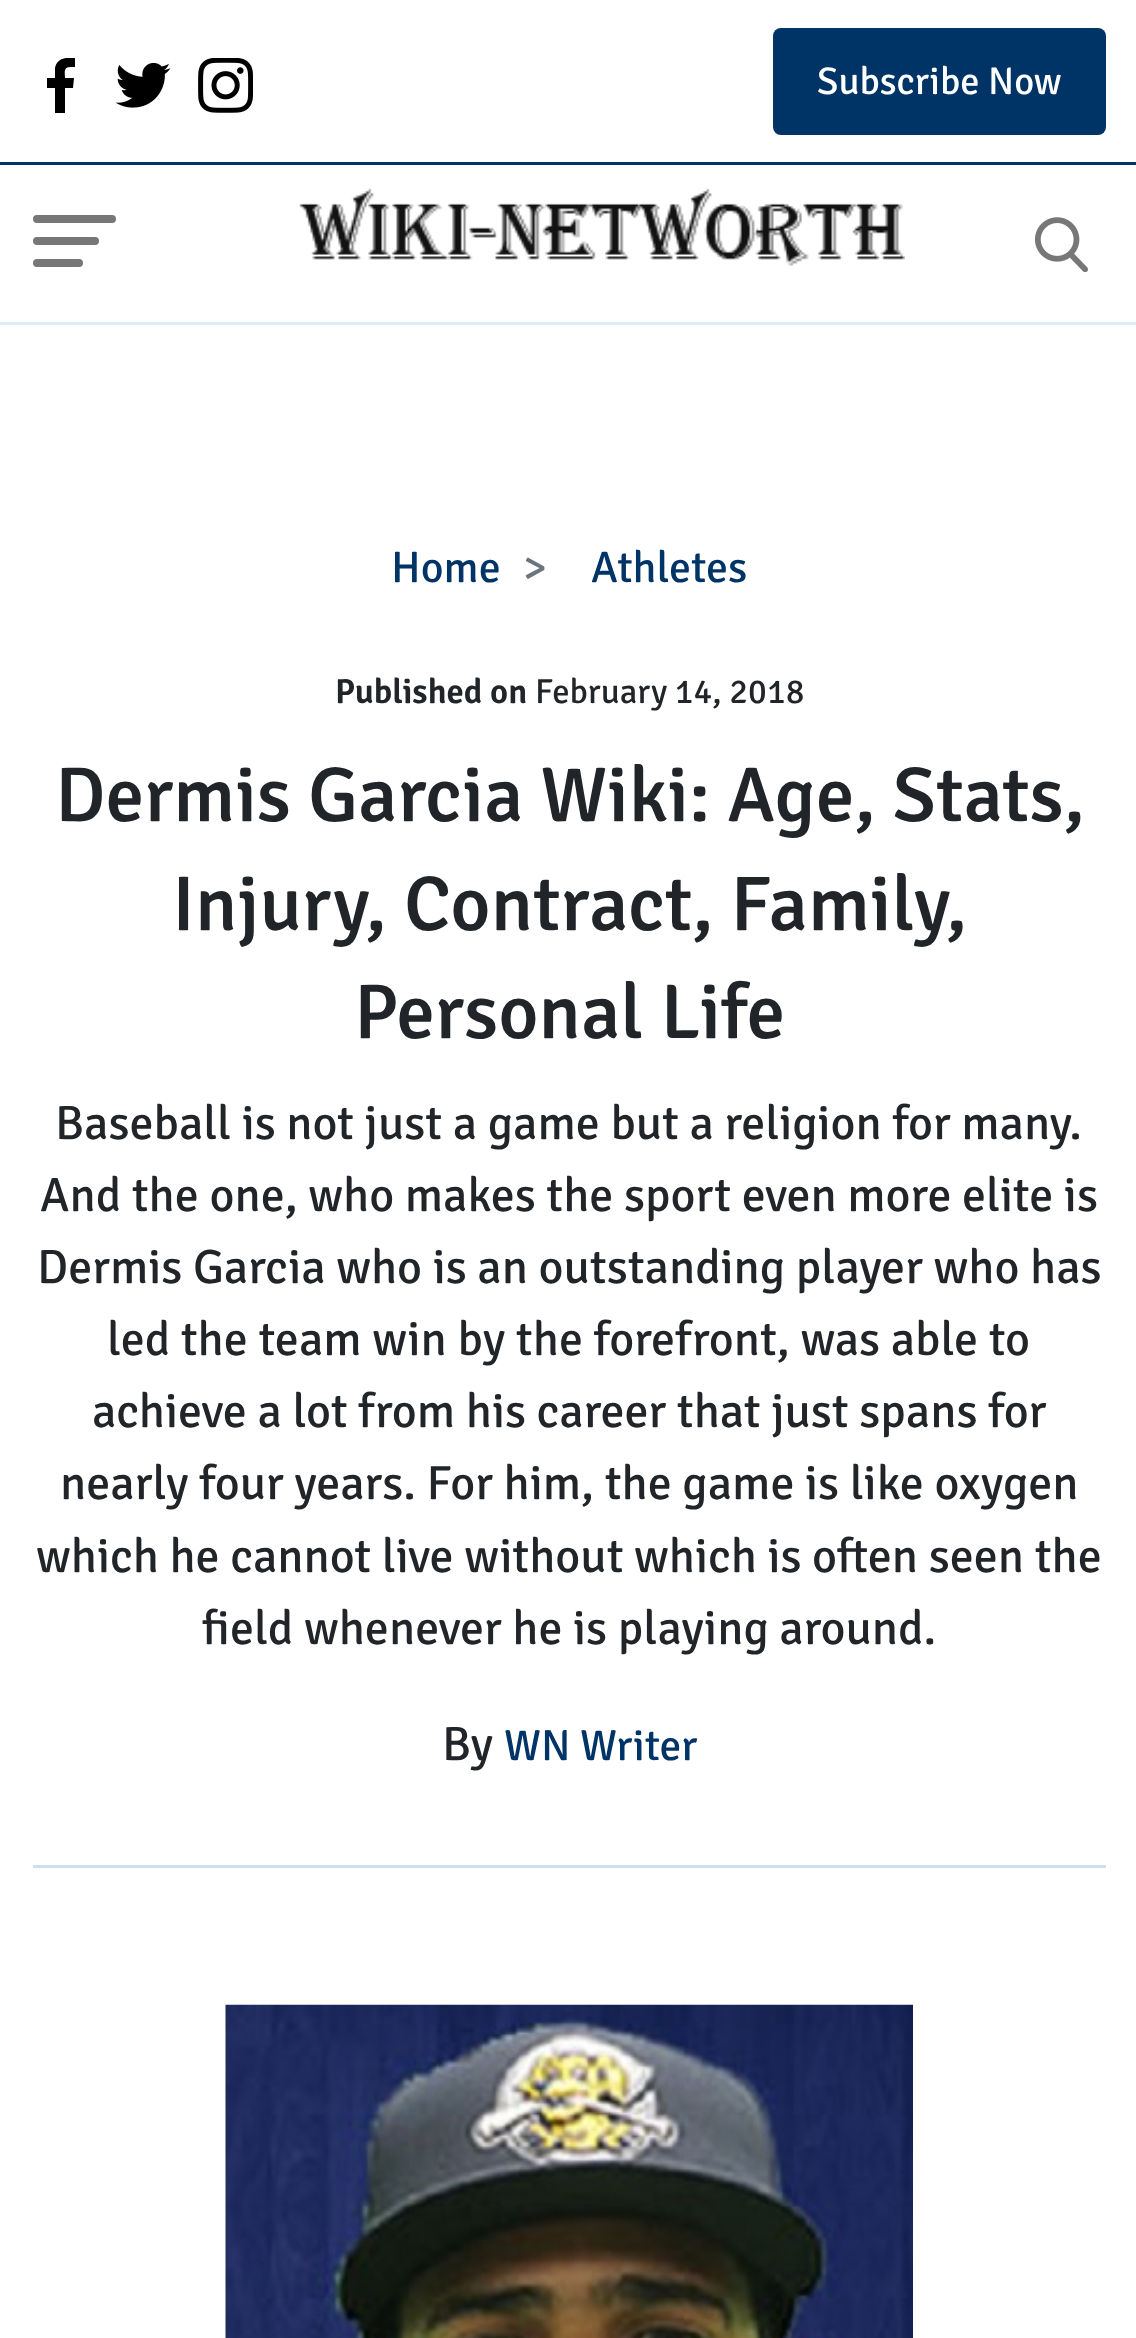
<svg xmlns="http://www.w3.org/2000/svg" width="1136" height="2338" viewBox="0 0 1136 2338">
  <defs>
    <clipPath id="clip1"><rect x="33" y="58" width="55" height="55"/></clipPath>
  </defs>
  <rect width="100%" height="100%" fill="#ffffff"/>
  <g clip-path="url(#clip1)">
    <path d="M70 67H75V58C66 57 57 58 55 68V78H47V88H55V113H65V88H73L74 78H65C65 74 63 67 70 67Z" fill="#000000"/>
  </g>
  <image x="116" y="62" width="55" height="46" href="img1.png"/>
  <image x="198" y="58" width="55" height="55" href="img2.png"/>
  <rect x="773" y="28" width="333" height="107" rx="8" fill="#003366"/>
  <text x="817" y="94" font-family="Signika" font-size="38.5" fill="#ffffff">Subscribe Now</text>
  <rect x="0" y="162" width="1136" height="3" fill="#003366"/>
  <rect x="0" y="322" width="1136" height="3" fill="#ddeeff"/>
  <rect x="33" y="215" width="83" height="8" rx="4" fill="#777777"/>
  <rect x="33" y="237" width="66" height="8" rx="4" fill="#777777"/>
  <rect x="33" y="259" width="50" height="8" rx="4" fill="#777777"/>
  <image x="299" y="188" width="606" height="78" href="img3.png"/>
  <image x="1034" y="217" width="54" height="55" href="img4.png"/>
  <text x="391" y="582" font-family="Signika" font-size="44" fill="#003366">Home</text>
  <text x="523" y="582" font-family="Signika" font-size="44" fill="#6c757d">&gt;</text>
  <text x="591" y="582" font-family="Signika" font-size="44" fill="#003366">Athletes</text>
  <text x="335" y="703" font-family="Signika" font-size="34.75" font-weight="600" fill="#212529">Published on</text>
  <text x="535" y="703" font-family="Signika" font-size="34.75" fill="#212529">February 14, 2018</text>
  <text x="55" y="821" font-family="Signika" font-size="77.6" font-weight="500" fill="#212529">Dermis Garcia Wiki: Age, Stats,</text>
  <text x="172" y="930" font-family="Signika" font-size="77.6" font-weight="500" fill="#212529">Injury, Contract, Family,</text>
  <text x="354" y="1038" font-family="Signika" font-size="77.6" font-weight="500" fill="#212529">Personal Life</text>
  <text x="55" y="1139" font-family="Signika" font-size="48.1" fill="#212529">Baseball is not just a game but a religion for many.</text>
  <text x="40" y="1211" font-family="Signika" font-size="48.1" fill="#212529">And the one, who makes the sport even more elite is</text>
  <text x="37" y="1283" font-family="Signika" font-size="48.1" fill="#212529">Dermis Garcia who is an outstanding player who has</text>
  <text x="107" y="1355" font-family="Signika" font-size="48.1" fill="#212529">led the team win by the forefront, was able to</text>
  <text x="92" y="1427" font-family="Signika" font-size="48.1" fill="#212529">achieve a lot from his career that just spans for</text>
  <text x="60" y="1499" font-family="Signika" font-size="48.1" fill="#212529">nearly four years. For him, the game is like oxygen</text>
  <text x="36" y="1572" font-family="Signika" font-size="48.1" fill="#212529">which he cannot live without which is often seen the</text>
  <text x="202" y="1644" font-family="Signika" font-size="48.1" fill="#212529">field whenever he is playing around.</text>
  <rect x="33" y="1865" width="1073" height="3" fill="#cedfef"/>
  <text x="442" y="1760" font-family="Signika" font-size="48.1" fill="#212529">By</text>
  <text x="504" y="1760" font-family="Signika" font-size="43.5" fill="#003366">WN Writer</text>
  <image x="225" y="2004" width="688" height="334" href="img5.png"/>
</svg>
